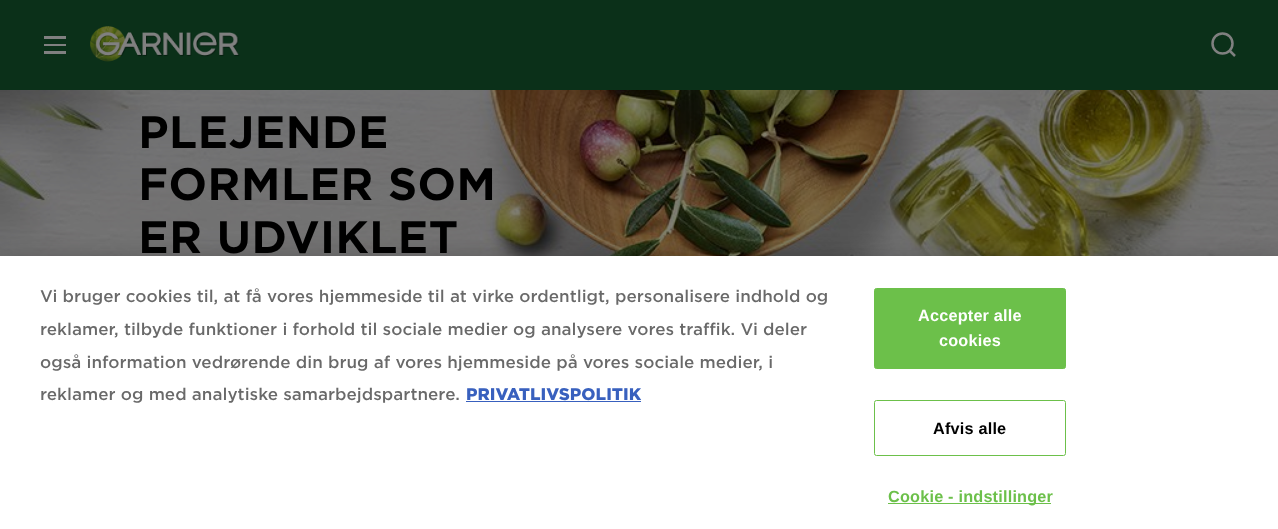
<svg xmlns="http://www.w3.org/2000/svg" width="1278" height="529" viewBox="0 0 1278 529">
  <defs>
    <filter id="blur1" x="-50%" y="-200%" width="200%" height="500%"><feGaussianBlur stdDeviation="11"/></filter>
  </defs>
  <rect width="100%" height="100%" fill="#ffffff"/>
  <rect x="0" y="0" width="1278" height="90" fill="#0b3019"/>
  <rect x="44" y="36" width="22" height="3" fill="#808080"/>
  <rect x="44" y="44" width="22" height="2" fill="#808080"/>
  <rect x="44" y="51" width="22" height="3" fill="#808080"/>
  <image x="90" y="26" width="150" height="36" href="img1.png"/>
  <circle cx="1222.5" cy="43.5" r="10" fill="none" stroke="#808080" stroke-width="2.5"/>
  <path d="M1229.5 50.5L1235 56" fill="none" stroke="#808080" stroke-width="2.5" stroke-linejoin="round"/>
  <image x="0" y="90" width="1278" height="166" href="img2.png"/>
  <text x="138" y="148" font-family="'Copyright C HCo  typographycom'" font-size="43.75" letter-spacing="0.1" fill="#000000">PLEJENDE</text>
  <text x="138" y="200" font-family="'Copyright C HCo  typographycom'" font-size="43.75" letter-spacing="0.1" fill="#000000">FORMLER SOM</text>
  <text x="138" y="253" font-family="'Copyright C HCo  typographycom'" font-size="43.75" letter-spacing="0.1" fill="#000000">ER UDVIKLET</text>
  <rect x="0" y="256" width="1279" height="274" fill="#000000" fill-opacity="0.2" filter="url(#blur1)"/>
  <rect x="0" y="256" width="1278" height="273" fill="#ffffff"/>
  <text x="40" y="302" font-family="'Copyright C HCo  typographycom'" font-size="16.25" font-weight="300" fill="#696969">Vi bruger cookies til, at få vores hjemmeside til at virke ordentligt, personalisere indhold og</text>
  <text x="40" y="335" font-family="'Copyright C HCo  typographycom'" font-size="16.25" font-weight="300" fill="#696969">reklamer, tilbyde funktioner i forhold til sociale medier og analysere vores traffik. Vi deler</text>
  <text x="40" y="368" font-family="'Copyright C HCo  typographycom'" font-size="16.25" font-weight="300" fill="#696969">også information vedrørende din brug af vores hjemmeside på vores sociale medier, i</text>
  <text x="40" y="400" font-family="'Copyright C HCo  typographycom'" font-size="16.25" font-weight="300" fill="#696969">reklamer og med analytiske samarbejdspartnere.</text>
  <text x="466" y="400" font-family="'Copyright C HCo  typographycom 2'" font-size="16.25" fill="#3860be">PRIVATLIVSPOLITIK</text>
  <rect x="466" y="401" width="175" height="1" fill="#3860be"/>
  <rect x="874.5" y="288.5" width="191" height="80" rx="2" fill="#6cc04a" stroke="#6cc04a"/>
  <text x="918" y="321" font-family="Liberation Sans" font-size="16.25" font-weight="bold" letter-spacing="0.2" fill="#ffffff">Accepter alle</text>
  <text x="939" y="346" font-family="Liberation Sans" font-size="16.25" font-weight="bold" letter-spacing="0.2" fill="#ffffff">cookies</text>
  <rect x="874.5" y="400.5" width="191" height="55" rx="2" fill="none" stroke="#6cc04a"/>
  <text x="933" y="434" font-family="Liberation Sans" font-size="16.25" font-weight="bold" letter-spacing="0.2" fill="#000000">Afvis alle</text>
  <rect x="888" y="503" width="163" height="1" fill="#6cc04a"/>
  <text x="888" y="502" font-family="Liberation Sans" font-size="16.25" font-weight="bold" letter-spacing="0.2" fill="#6cc04a">Cookie - indstillinger</text>
</svg>
